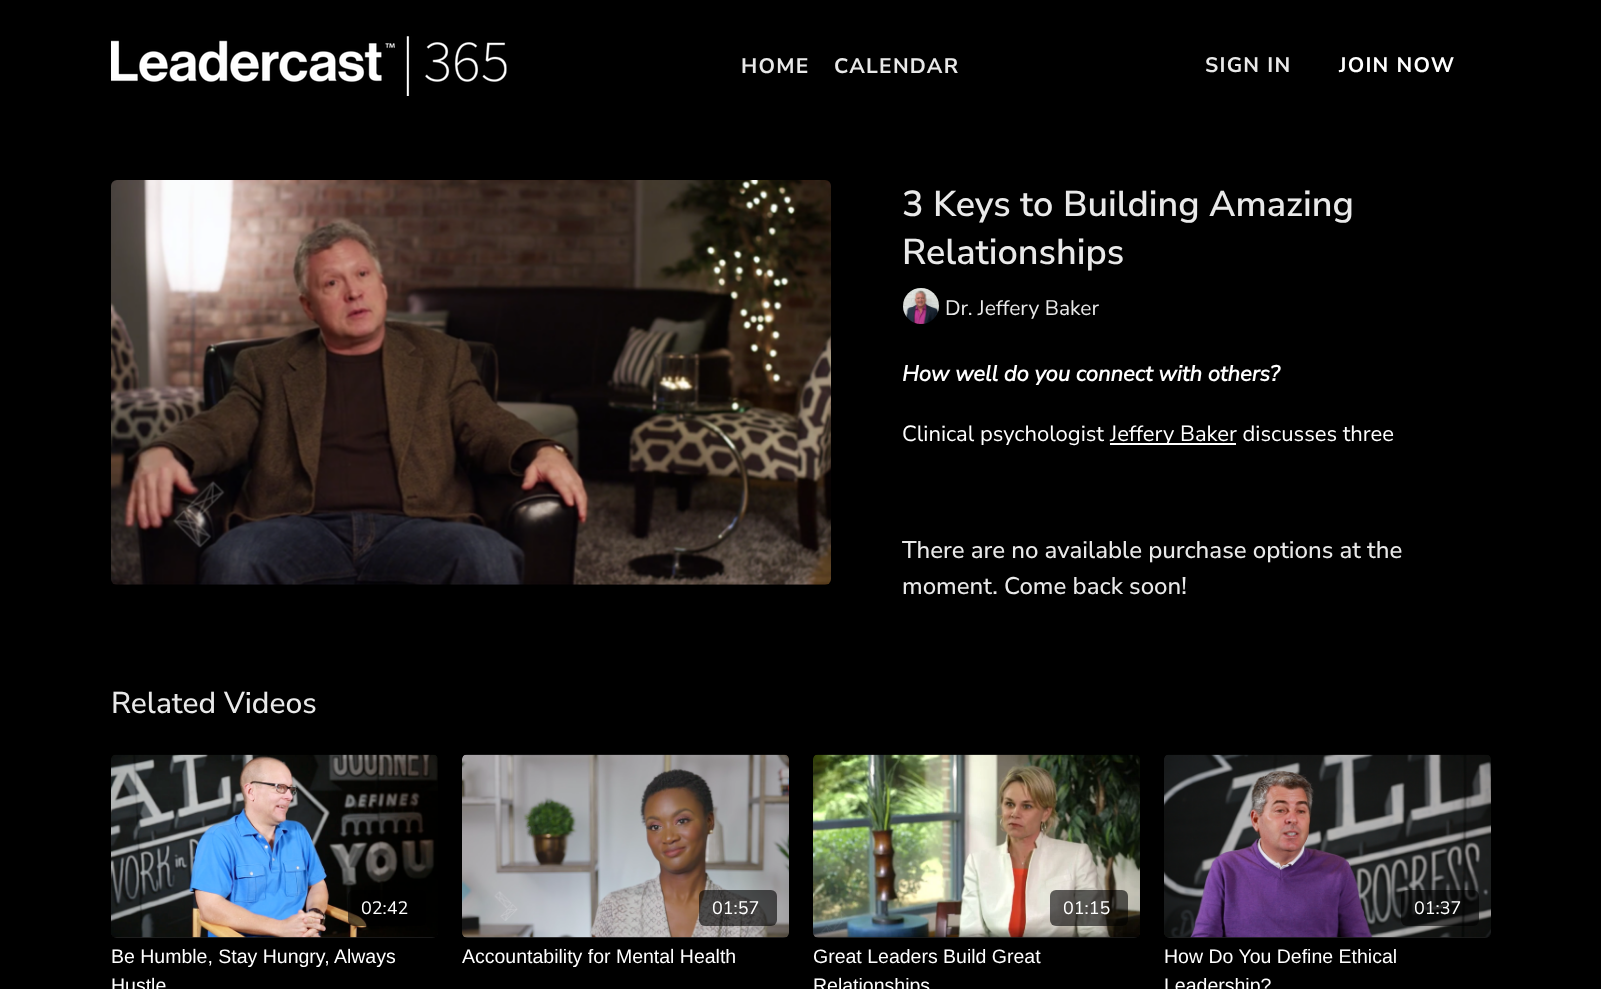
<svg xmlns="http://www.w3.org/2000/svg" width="1601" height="989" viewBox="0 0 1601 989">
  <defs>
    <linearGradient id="g1" gradientUnits="userSpaceOnUse" x1="111" y1="846" x2="438" y2="846"><stop offset="0.08" stop-color="#212121"/><stop offset="0.18" stop-color="#1f1f1f"/><stop offset="0.33" stop-color="#1c1c1c"/></linearGradient>
    <linearGradient id="g2" gradientUnits="userSpaceOnUse" x1="462" y1="846" x2="789" y2="846"><stop offset="0.08" stop-color="#212121"/><stop offset="0.18" stop-color="#1f1f1f"/><stop offset="0.33" stop-color="#1c1c1c"/></linearGradient>
    <linearGradient id="g3" gradientUnits="userSpaceOnUse" x1="813" y1="846" x2="1140" y2="846"><stop offset="0.08" stop-color="#212121"/><stop offset="0.18" stop-color="#1f1f1f"/><stop offset="0.33" stop-color="#1c1c1c"/></linearGradient>
    <linearGradient id="g4" gradientUnits="userSpaceOnUse" x1="1164" y1="846" x2="1491" y2="846"><stop offset="0.08" stop-color="#212121"/><stop offset="0.18" stop-color="#1f1f1f"/><stop offset="0.33" stop-color="#1c1c1c"/></linearGradient>
  </defs>
  <rect width="100%" height="100%" fill="#000000"/>
  <image x="111" y="36" width="396" height="60" href="img1.png"/>
  <text x="741" y="73" font-family="Nunito Sans" font-size="21" font-weight="bold" letter-spacing="1.25" fill="#e9e9e9">HOME</text>
  <text x="834" y="73" font-family="Nunito Sans" font-size="21" font-weight="bold" letter-spacing="1.25" fill="#e9e9e9">CALENDAR</text>
  <text x="1205" y="72" font-family="Nunito Sans" font-size="21" font-weight="bold" letter-spacing="1.25" fill="#e9e9e9">SIGN IN</text>
  <text x="1339" y="72" font-family="Nunito Sans" font-size="21" font-weight="bold" letter-spacing="1.25" fill="#ffffff">JOIN NOW</text>
  <image x="111" y="180" width="720" height="405" href="img2.png"/>
  <text x="902" y="216" font-family="Nunito Sans" font-size="36" font-weight="600" fill="#e9e9e9">3 Keys to Building Amazing</text>
  <text x="902" y="264" font-family="Nunito Sans" font-size="36" font-weight="600" fill="#e9e9e9">Relationships</text>
  <image x="903" y="288" width="36" height="36" href="img3.png"/>
  <text x="945" y="315" font-family="Nunito Sans" font-size="21" fill="#e9e9e9">Dr. Jeffery Baker</text>
  <text x="902" y="381" font-family="Nunito Sans" font-size="22" font-weight="bold" font-style="italic" fill="#ffffff">How well do you connect with others?</text>
  <text x="902" y="441" font-family="Nunito Sans" font-size="22" fill="#ffffff">Clinical psychologist</text>
  <rect x="1110" y="443" width="126" height="2" fill="#ffffff"/>
  <text x="1110" y="441" font-family="Nunito Sans" font-size="22" fill="#ffffff">Jeffery Baker discusses three</text>
  <text x="902" y="558" font-family="Nunito Sans" font-size="24" font-weight="500" fill="#e9e9e9">There are no available purchase options at the</text>
  <text x="902" y="594" font-family="Nunito Sans" font-size="24" font-weight="500" fill="#e9e9e9">moment. Come back soon!</text>
  <text x="111" y="713" font-family="Nunito Sans" font-size="30" font-weight="500" fill="#e9e9e9">Related Videos</text>
  <rect x="111" y="755" width="327" height="183" rx="6" fill="url(#g1)"/>
  <image x="111" y="754" width="327" height="184" href="img4.png"/>
  <rect x="348" y="890" width="78" height="36" rx="6" fill="#000000" fill-opacity="0.6"/>
  <text x="361" y="914" font-family="Nunito Sans" font-size="18" fill="#ffffff">02:42</text>
  <text x="111" y="963" font-family="Liberation Sans" font-size="19.5" fill="#ffffff">Be Humble, Stay Hungry, Always</text>
  <text x="111" y="992" font-family="Liberation Sans" font-size="19.5" fill="#ffffff">Hustle</text>
  <rect x="462" y="755" width="327" height="183" rx="6" fill="url(#g2)"/>
  <image x="462" y="754" width="327" height="184" href="img5.png"/>
  <rect x="699" y="890" width="78" height="36" rx="6" fill="#000000" fill-opacity="0.6"/>
  <text x="712" y="914" font-family="Nunito Sans" font-size="18" fill="#ffffff">01:57</text>
  <text x="462" y="963" font-family="Liberation Sans" font-size="19.5" fill="#ffffff">Accountability for Mental Health</text>
  <rect x="813" y="755" width="327" height="183" rx="6" fill="url(#g3)"/>
  <image x="813" y="754" width="327" height="184" href="img6.png"/>
  <rect x="1050" y="890" width="78" height="36" rx="6" fill="#000000" fill-opacity="0.6"/>
  <text x="1063" y="914" font-family="Nunito Sans" font-size="18" fill="#ffffff">01:15</text>
  <text x="813" y="963" font-family="Liberation Sans" font-size="19.5" fill="#ffffff">Great Leaders Build Great</text>
  <text x="813" y="992" font-family="Liberation Sans" font-size="19.5" fill="#ffffff">Relationships</text>
  <rect x="1164" y="755" width="327" height="183" rx="6" fill="url(#g4)"/>
  <image x="1164" y="754" width="327" height="184" href="img7.png"/>
  <rect x="1401" y="890" width="78" height="36" rx="6" fill="#000000" fill-opacity="0.6"/>
  <text x="1414" y="914" font-family="Nunito Sans" font-size="18" fill="#ffffff">01:37</text>
  <text x="1164" y="963" font-family="Liberation Sans" font-size="19.5" fill="#ffffff">How Do You Define Ethical</text>
  <text x="1164" y="992" font-family="Liberation Sans" font-size="19.5" fill="#ffffff">Leadership?</text>
</svg>
